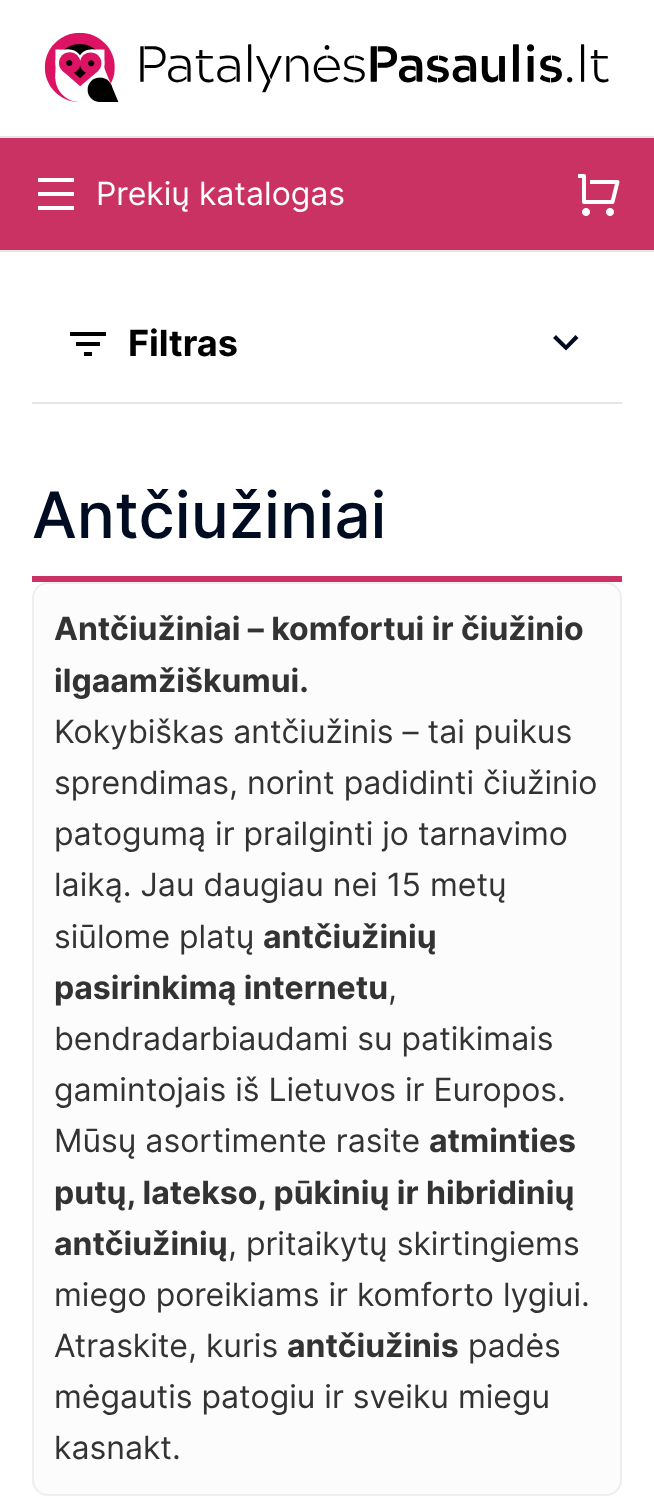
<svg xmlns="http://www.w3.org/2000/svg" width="654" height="1504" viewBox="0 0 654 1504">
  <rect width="100%" height="100%" fill="#ffffff"/>
  <image x="44" y="32" width="565" height="70" href="img1.png"/>
  <rect x="0" y="136" width="654" height="2" fill="#e6e6e6"/>
  <rect x="0" y="250" width="654" height="2" fill="#e6e6e6"/>
  <rect x="0" y="138" width="654" height="112" fill="#cb3264"/>
  <path d="M38 178H74V182H38ZM38 192H74V196H38ZM38 206H74V210H38Z" fill="#ffffff"/>
  <text x="96" y="205" font-family="Inter" font-size="32" fill="#ffffff">Prekių katalogas</text>
  <image x="578" y="174" width="42" height="42" href="img2.png"/>
  <rect x="32" y="402" width="590" height="2" fill="#e6e6e6"/>
  <path d="M84 356H92V352H84ZM70 332V336H106V332ZM76 346H100V342H76Z" fill="#000000"/>
  <text x="128" y="356" font-family="Inter" font-size="36" font-weight="bold" fill="#000000">Filtras</text>
  <path d="M566 345L575.5 335L578.5 338L566 350.5L553 338L556 335Z" fill="#000c22"/>
  <rect x="32" y="576" width="590" height="6" fill="#cb3264"/>
  <text x="32" y="538" font-family="Inter" font-size="64" font-weight="500" fill="#000c22">Antčiužiniai</text>
  <rect x="33" y="583" width="588" height="912" rx="15" fill="#fcfcfc" stroke="#eeeeee" stroke-width="2"/>
  <text x="54" y="640" font-family="Inter" font-size="32" font-weight="bold" fill="#333333">Antčiužiniai – komfortui ir čiužinio</text>
  <text x="54" y="692" font-family="Inter" font-size="32" font-weight="bold" fill="#333333">ilgaamžiškumui.</text>
  <text x="54" y="743" font-family="Inter" font-size="32" fill="#333333">Kokybiškas antčiužinis – tai puikus</text>
  <text x="54" y="794" font-family="Inter" font-size="32" fill="#333333">sprendimas, norint padidinti čiužinio</text>
  <text x="54" y="845" font-family="Inter" font-size="32" fill="#333333">patogumą ir prailginti jo tarnavimo</text>
  <text x="54" y="896" font-family="Inter" font-size="32" fill="#333333">laiką. Jau daugiau nei 15 metų</text>
  <text x="54" y="948" font-family="Inter" font-size="32" fill="#333333">siūlome platų</text>
  <text x="263" y="948" font-family="Inter" font-size="32" font-weight="bold" fill="#333333">antčiužinių</text>
  <text x="54" y="999" font-family="Inter" font-size="32" font-weight="bold" fill="#333333">pasirinkimą internetu</text>
  <text x="388" y="999" font-family="Inter" font-size="32" fill="#333333">,</text>
  <text x="54" y="1050" font-family="Inter" font-size="32" fill="#333333">bendradarbiaudami su patikimais</text>
  <text x="54" y="1101" font-family="Inter" font-size="32" fill="#333333">gamintojais iš Lietuvos ir Europos.</text>
  <text x="54" y="1152" font-family="Inter" font-size="32" fill="#333333">Mūsų asortimente rasite</text>
  <text x="429" y="1152" font-family="Inter" font-size="32" font-weight="bold" fill="#333333">atminties</text>
  <text x="54" y="1204" font-family="Inter" font-size="32" font-weight="bold" fill="#333333">putų, latekso, pūkinių ir hibridinių</text>
  <text x="54" y="1255" font-family="Inter" font-size="32" font-weight="bold" fill="#333333">antčiužinių</text>
  <text x="228" y="1255" font-family="Inter" font-size="32" fill="#333333">, pritaikytų skirtingiems</text>
  <text x="54" y="1306" font-family="Inter" font-size="32" fill="#333333">miego poreikiams ir komforto lygiui.</text>
  <text x="54" y="1357" font-family="Inter" font-size="32" fill="#333333">Atraskite, kuris</text>
  <text x="287" y="1357" font-family="Inter" font-size="32" font-weight="bold" fill="#333333">antčiužinis</text>
  <text x="468" y="1357" font-family="Inter" font-size="32" fill="#333333">padės</text>
  <text x="54" y="1408" font-family="Inter" font-size="32" fill="#333333">mėgautis patogiu ir sveiku miegu</text>
  <text x="54" y="1459" font-family="Inter" font-size="32" fill="#333333">kasnakt.</text>
</svg>
